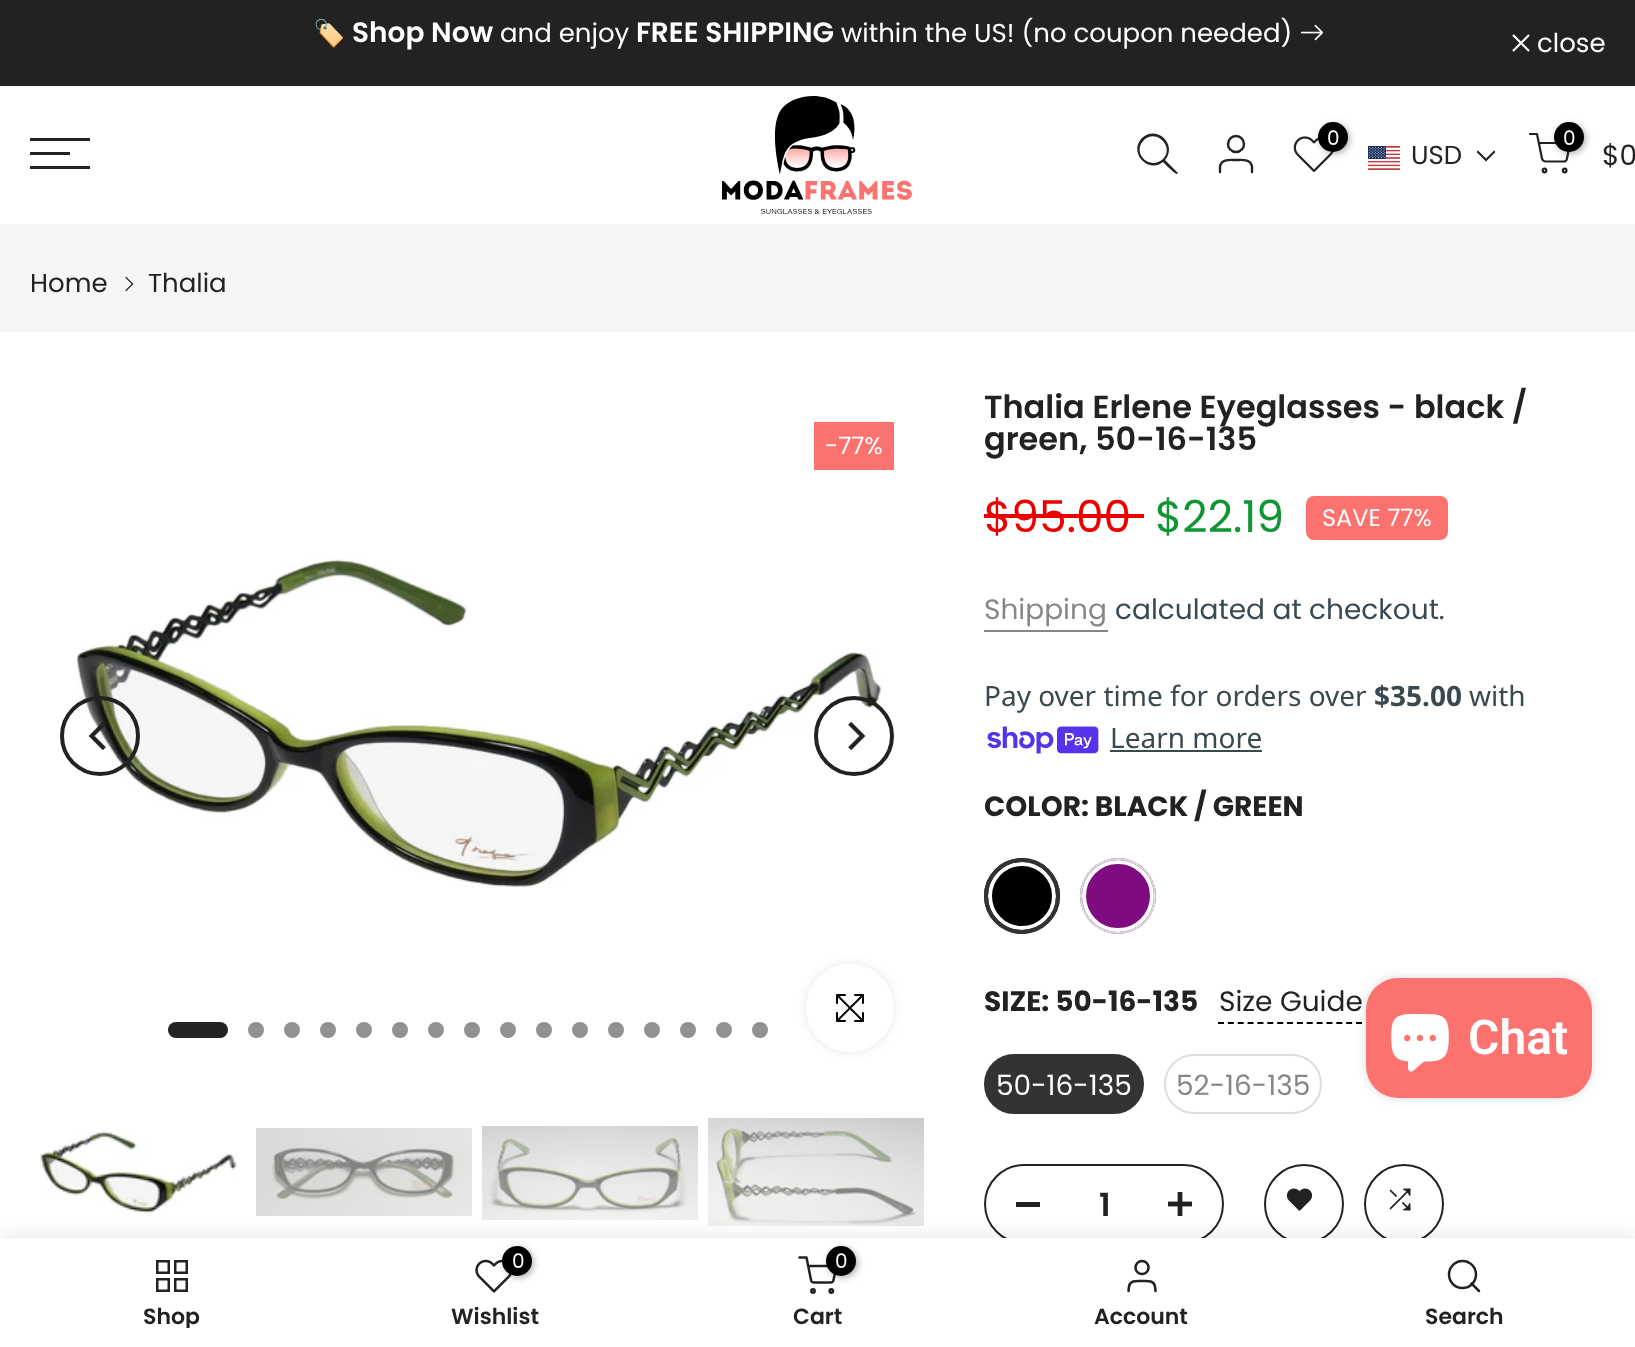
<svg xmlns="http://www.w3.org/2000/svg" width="1635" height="1347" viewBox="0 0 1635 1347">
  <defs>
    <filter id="blur1" x="-50%" y="-200%" width="200%" height="500%"><feGaussianBlur stdDeviation="3"/></filter>
    <filter id="blur2" x="-50%" y="-200%" width="200%" height="500%"><feGaussianBlur stdDeviation="5"/></filter>
    <filter id="blur3" x="-50%" y="-200%" width="200%" height="500%"><feGaussianBlur stdDeviation="9"/></filter>
    <clipPath id="clip1"><rect x="30" y="1306" width="284" height="22"/></clipPath>
  </defs>
  <rect width="100%" height="100%" fill="#ffffff"/>
  <rect x="0" y="0" width="1635" height="86" fill="#222222"/>
  <text x="313" y="42" font-family="Noto Color Emoji" font-size="26" fill="#ffffff">🏷️</text>
  <text x="352" y="42" font-family="Poppins" font-size="28" font-weight="600" fill="#ffffff">Shop Now</text>
  <text x="500" y="42" font-family="Poppins" font-size="26" fill="#ffffff">and enjoy</text>
  <text x="636" y="42" font-family="Poppins" font-size="28" font-weight="600" fill="#ffffff">FREE SHIPPING</text>
  <text x="841" y="42" font-family="Poppins" font-size="26" fill="#ffffff">within the US! (no coupon needed)</text>
  <image x="1300" y="24" width="24" height="17" href="img1.png"/>
  <path d="M1529 35L1513 51M1529 51L1513 35" fill="none" stroke="#ffffff" stroke-width="2.2"/>
  <text x="1537" y="52" font-family="Poppins" font-size="26" fill="#ffffff">close</text>
  <rect x="30" y="138" width="60" height="3" fill="#222222"/>
  <rect x="30" y="152" width="40" height="3" fill="#222222"/>
  <rect x="30" y="166" width="60" height="3" fill="#222222"/>
  <image x="722" y="96" width="190" height="118" href="img2.png"/>
  <path d="M1163 159C1150 171 1131 153 1144 140C1156 128 1175 147 1163 159ZM1163 162C1148 174 1128 152 1142 138C1157 124 1178 145 1165 160L1178 173L1177 174C1176 175 1165 164 1163 162Z" fill="#222222" fill-rule="evenodd"/>
  <circle cx="1236" cy="144" r="8" fill="none" stroke="#222222" stroke-width="2.4"/>
  <path d="M1252 172V166.5C1250.5 158.5 1242 160 1236 160C1230 160 1221.5 158.5 1220 166.5V172" fill="none" stroke="#222222" stroke-width="2.4" stroke-linecap="round" stroke-linejoin="round"/>
  <image x="1293" y="136" width="41" height="36" href="img3.png"/>
  <rect x="1320" y="124" width="30" height="30" rx="15" fill="#000000" fill-opacity="0.3" filter="url(#blur1)"/>
  <circle cx="1333" cy="137" r="15" fill="#000000"/>
  <text x="1327" y="145" font-family="Poppins" font-size="20" fill="#ffffff">0</text>
  <image x="1368" y="146" width="32" height="24" href="img4.png"/>
  <text x="1411" y="164" font-family="Poppins" font-size="26" fill="#222222">USD</text>
  <path d="M1494 152L1486 160L1478 152" fill="none" stroke="#222222" stroke-width="2.1" stroke-linecap="square"/>
  <path d="M1530 134H1537L1542 158.5C1542.5 160 1544 161.5 1545.5 161.5H1563.5C1565.5 161.5 1567 160 1567 158.5L1570 143H1539" fill="none" stroke="#222222" stroke-width="2.2" stroke-linecap="round" stroke-linejoin="round"/>
  <rect x="1556" y="124" width="30" height="30" rx="15" fill="#000000" fill-opacity="0.3" filter="url(#blur1)"/>
  <circle cx="1569" cy="137" r="15" fill="#000000"/>
  <text x="1563" y="145" font-family="Poppins" font-size="20" fill="#ffffff">0</text>
  <circle cx="1544.5" cy="170.5" r="1.8" fill="none" stroke="#222222" stroke-width="2.2"/>
  <circle cx="1564.7" cy="170.5" r="1.8" fill="none" stroke="#222222" stroke-width="2.2"/>
  <text x="1602" y="165" font-family="Poppins" font-size="28" fill="#222222">$0</text>
  <rect x="0" y="224" width="1635" height="108" fill="#f6f6f6"/>
  <text x="30" y="292" font-family="Poppins" font-size="26" fill="#222222">Home</text>
  <image x="125" y="276" width="9" height="16" href="img5.png"/>
  <text x="148" y="292" font-family="Poppins" font-size="26" fill="#222222">Thalia</text>
  <rect x="814" y="422" width="80" height="48" fill="#fc726f"/>
  <text x="825" y="454" font-family="Poppins" font-size="24" fill="#ffffff">-77%</text>
  <image x="76" y="559" width="807" height="329" href="img6.png"/>
  <circle cx="100" cy="736" r="38" fill="none" stroke="#222222" stroke-width="4"/>
  <image x="88" y="722" width="18" height="29" href="img7.png"/>
  <circle cx="854" cy="736" r="38" fill="none" stroke="#222222" stroke-width="4"/>
  <image x="848" y="721" width="18" height="30" href="img8.png"/>
  <rect x="168" y="1022" width="60" height="16" rx="8" fill="#222222"/>
  <circle cx="256" cy="1030" r="8" fill="#919191"/>
  <circle cx="292" cy="1030" r="8" fill="#919191"/>
  <circle cx="328" cy="1030" r="8" fill="#919191"/>
  <circle cx="364" cy="1030" r="8" fill="#919191"/>
  <circle cx="400" cy="1030" r="8" fill="#919191"/>
  <circle cx="436" cy="1030" r="8" fill="#919191"/>
  <circle cx="472" cy="1030" r="8" fill="#919191"/>
  <circle cx="508" cy="1030" r="8" fill="#919191"/>
  <circle cx="544" cy="1030" r="8" fill="#919191"/>
  <circle cx="580" cy="1030" r="8" fill="#919191"/>
  <circle cx="616" cy="1030" r="8" fill="#919191"/>
  <circle cx="652" cy="1030" r="8" fill="#919191"/>
  <circle cx="688" cy="1030" r="8" fill="#919191"/>
  <circle cx="724" cy="1030" r="8" fill="#919191"/>
  <circle cx="760" cy="1030" r="8" fill="#919191"/>
  <rect x="806" y="964" width="88" height="88" rx="44" fill="#000000" fill-opacity="0.09" filter="url(#blur2)"/>
  <circle cx="850" cy="1008" r="44" fill="#ffffff"/>
  <image x="836" y="994" width="28" height="28" href="img9.png"/>
  <image x="40" y="1131" width="198" height="85" href="img10.png"/>
  <image x="256" y="1128" width="216" height="88" href="img11.png"/>
  <image x="482" y="1126" width="216" height="94" href="img12.png"/>
  <image x="708" y="1118" width="216" height="108" href="img13.png"/>
  <text x="984" y="418" font-family="Poppins" font-size="32" font-weight="600" fill="#222222">Thalia Erlene Eyeglasses - black /</text>
  <text x="984" y="450" font-family="Poppins" font-size="32" font-weight="600" fill="#222222">green, 50-16-135</text>
  <text x="984" y="532" font-family="Poppins" font-size="44" fill="#ec0101">$95.00</text>
  <rect x="984" y="514" width="160" height="4" fill="#ec0101"/>
  <text x="1155" y="532" font-family="Poppins" font-size="44" fill="#109533">$22.19</text>
  <rect x="1306" y="496" width="142" height="44" rx="8" fill="#fc726f"/>
  <text x="1322" y="526" font-family="Poppins" font-size="24" fill="#ffffff">SAVE 77%</text>
  <text x="984" y="619" font-family="Poppins" font-size="28" fill="#878787">Shipping</text>
  <rect x="984" y="630" width="124" height="2" fill="#878787"/>
  <text x="1115" y="619" font-family="Poppins" font-size="28" fill="#3a4850">calculated at checkout.</text>
  <text x="984" y="706" font-family="Noto Sans" font-size="28" fill="#3a4850">Pay over time for orders over</text>
  <text x="1374" y="706" font-family="Noto Sans" font-size="28" font-weight="bold" fill="#3a4850">$35.00</text>
  <text x="1469" y="706" font-family="Noto Sans" font-size="28" fill="#3a4850">with</text>
  <image x="987" y="726" width="112" height="28" href="img14.png"/>
  <text x="1110" y="748" font-family="Noto Sans" font-size="28" fill="#3a4850">Learn more</text>
  <rect x="1110" y="750" width="152" height="2" fill="#3a4850"/>
  <text x="984" y="816" font-family="Poppins" font-size="28" font-weight="bold" fill="#222222">COLOR: BLACK / GREEN</text>
  <circle cx="1022" cy="896" r="38" fill="#000000"/>
  <circle cx="1022" cy="896" r="32" fill="none" stroke="#ffffff" stroke-width="4"/>
  <circle cx="1022" cy="896" r="36" fill="none" stroke="#333333" stroke-width="4"/>
  <circle cx="1118" cy="896" r="38" fill="#7e0b80"/>
  <circle cx="1118" cy="896" r="34" fill="none" stroke="#ffffff" stroke-width="4"/>
  <circle cx="1118" cy="896" r="37" fill="none" stroke="#dddddd" stroke-width="2"/>
  <text x="984" y="1011" font-family="Poppins" font-size="28" font-weight="bold" fill="#222222">SIZE: 50-16-135</text>
  <path d="M1218 1023H1362" fill="none" stroke="#000000" stroke-width="2" stroke-dasharray="6 3.86"/>
  <text x="1219" y="1011" font-family="Poppins" font-size="28" fill="#222222">Size Guide</text>
  <rect x="985" y="1055" width="158" height="58" rx="29" fill="#333333" stroke="#333333" stroke-width="2"/>
  <text x="996" y="1095" font-family="Poppins" font-size="28" fill="#ffffff">50-16-135</text>
  <rect x="1165" y="1055" width="156" height="58" rx="29" fill="none" stroke="#dddddd" stroke-width="2"/>
  <text x="1176" y="1095" font-family="Poppins" font-size="28" fill="#878787">52-16-135</text>
  <rect x="985" y="1165" width="238" height="78" rx="39" fill="none" stroke="#222222" stroke-width="2"/>
  <rect x="1016" y="1202" width="24" height="5" fill="#222222"/>
  <text x="1099" y="1216" font-family="Poppins" font-size="32" font-weight="600" fill="#222222">1</text>
  <image x="1168" y="1192" width="24" height="24" href="img15.png"/>
  <circle cx="1304" cy="1204" r="39" fill="none" stroke="#222222" stroke-width="2"/>
  <image x="1286" y="1188" width="27" height="23" href="img16.png"/>
  <circle cx="1404" cy="1204" r="39" fill="none" stroke="#222222" stroke-width="2"/>
  <image x="1389" y="1188" width="22" height="23" href="img17.png"/>
  <rect x="1366" y="978" width="226" height="120" rx="32" fill="#000000" fill-opacity="0.15" filter="url(#blur2)"/>
  <rect x="1366" y="978" width="226" height="120" rx="32" fill="#fc726f"/>
  <image x="1391" y="1014" width="58" height="58" href="img18.png"/>
  <text x="1468" y="1054" font-family="Roboto" font-size="48" font-weight="600" fill="#ffffff">Chat</text>
  <rect x="0" y="1238" width="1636" height="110" fill="#000000" fill-opacity="0.12" filter="url(#blur3)"/>
  <rect x="0" y="1238" width="1635" height="109" fill="#ffffff"/>
  <rect x="157.25" y="1261.25" width="11.5" height="11.5" fill="none" stroke="#222222" stroke-width="2.5"/>
  <rect x="175.25" y="1261.25" width="11.5" height="11.5" fill="none" stroke="#222222" stroke-width="2.5"/>
  <rect x="157.25" y="1279.25" width="11.5" height="11.5" fill="none" stroke="#222222" stroke-width="2.5"/>
  <rect x="175.25" y="1279.25" width="11.5" height="11.5" fill="none" stroke="#222222" stroke-width="2.5"/>
  <g clip-path="url(#clip1)">
    <text x="143" y="1324" font-family="Poppins" font-size="22" font-weight="600" fill="#222222">Shop</text>
  </g>
  <image x="475" y="1259" width="37" height="34" href="img19.png"/>
  <rect x="504" y="1248" width="30" height="30" rx="15" fill="#000000" fill-opacity="0.3" filter="url(#blur1)"/>
  <circle cx="517" cy="1261" r="15" fill="#000000"/>
  <text x="512" y="1268" font-family="Poppins" font-size="20" fill="#ffffff">0</text>
  <text x="451" y="1324" font-family="Poppins" font-size="22" font-weight="600" fill="#222222">Wishlist</text>
  <path d="M799.5 1257.5H806.5L811 1280C811 1281.5 812.5 1282.5 814 1282.5H830.5C832 1282.5 833.5 1281.5 833.5 1280L836.5 1266H808" fill="none" stroke="#222222" stroke-width="2.5" stroke-linecap="round" stroke-linejoin="round"/>
  <rect x="828" y="1248" width="30" height="30" rx="15" fill="#000000" fill-opacity="0.3" filter="url(#blur1)"/>
  <circle cx="841" cy="1261" r="15" fill="#000000"/>
  <text x="835" y="1268" font-family="Poppins" font-size="20" fill="#ffffff">0</text>
  <circle cx="813" cy="1291" r="1.7" fill="none" stroke="#222222" stroke-width="2.5"/>
  <circle cx="831.3" cy="1291" r="1.7" fill="none" stroke="#222222" stroke-width="2.5"/>
  <text x="793" y="1324" font-family="Poppins" font-size="22" font-weight="600" fill="#222222">Cart</text>
  <circle cx="1142" cy="1267.5" r="6.5" fill="none" stroke="#222222" stroke-width="2.5"/>
  <path d="M1155.5 1291L1155 1286.5C1154 1280 1147 1281 1142 1281C1137 1281 1130 1280 1129 1286.5L1128.5 1291" fill="none" stroke="#222222" stroke-width="2.5" stroke-linecap="round" stroke-linejoin="round"/>
  <text x="1094" y="1324" font-family="Poppins" font-size="22" font-weight="600" fill="#222222">Account</text>
  <circle cx="1462.5" cy="1274.5" r="13.5" fill="none" stroke="#222222" stroke-width="2.5"/>
  <path d="M1479 1291L1471.5 1283.5" fill="none" stroke="#222222" stroke-width="2.5" stroke-linecap="round" stroke-linejoin="round"/>
  <text x="1425" y="1324" font-family="Poppins" font-size="22" font-weight="600" fill="#222222">Search</text>
</svg>
